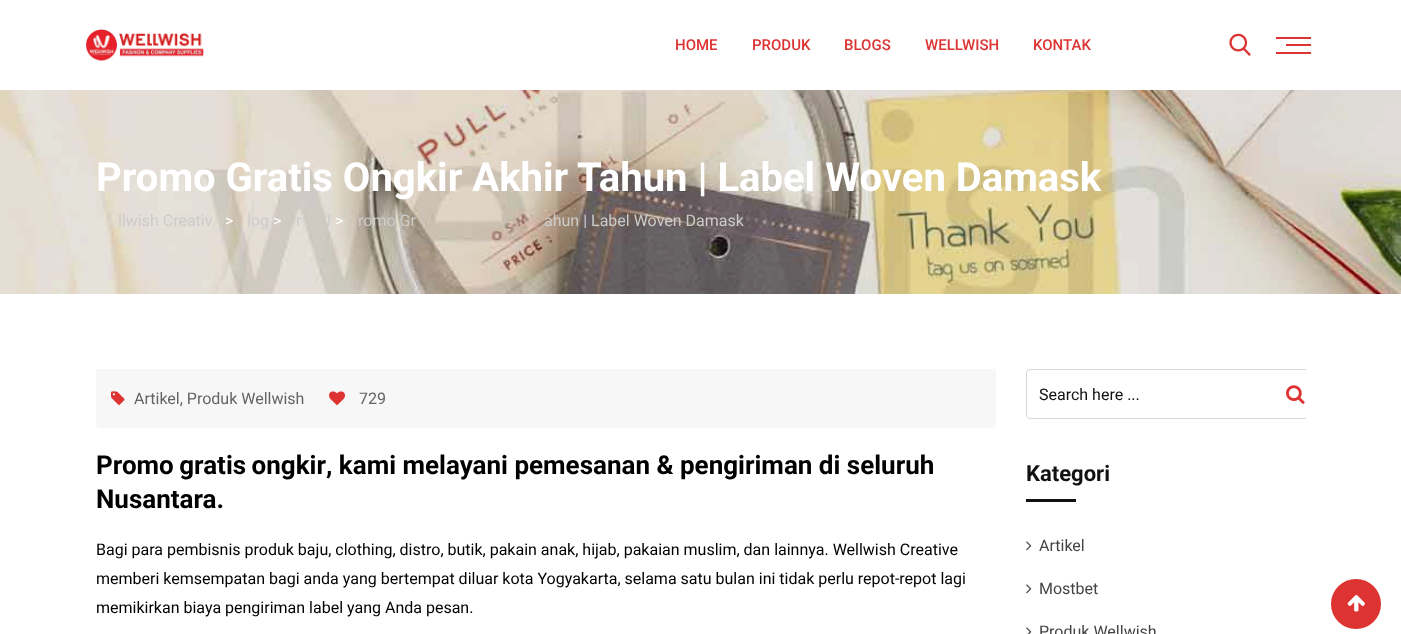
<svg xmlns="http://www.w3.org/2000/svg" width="1401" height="634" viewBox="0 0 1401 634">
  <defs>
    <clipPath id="clip1"><rect x="1026" y="369" width="280" height="50"/></clipPath>
  </defs>
  <rect width="100%" height="100%" fill="#ffffff"/>
  <image x="86" y="29" width="118" height="32" href="img1.png"/>
  <text x="675" y="50" font-family="Roboto" font-size="15" font-weight="500" fill="#dd3333">HOME</text>
  <text x="752" y="50" font-family="Roboto" font-size="15" font-weight="500" fill="#dd3333">PRODUK</text>
  <text x="844" y="50" font-family="Roboto" font-size="15" font-weight="500" fill="#dd3333">BLOGS</text>
  <text x="925" y="50" font-family="Roboto" font-size="15" font-weight="500" fill="#dd3333">WELLWISH</text>
  <text x="1033" y="50" font-family="Roboto" font-size="15" font-weight="500" fill="#dd3333">KONTAK</text>
  <image x="1229" y="33" width="22" height="23" href="img2.png"/>
  <rect x="1276" y="37" width="35" height="2" fill="#dd3333"/>
  <rect x="1286" y="44" width="25" height="2" fill="#dd3333"/>
  <rect x="1276" y="52" width="35" height="2" fill="#dd3333"/>
  <image x="0" y="90" width="1401" height="204" href="img3.png"/>
  <text x="96" y="191" font-family="Roboto" font-size="40" font-weight="bold" fill="#ffffff">Promo Gratis Ongkir Akhir Tahun | Label Woven Damask</text>
  <text x="118" y="226" font-family="Roboto" font-size="16" fill="#cccccc">llwish Creativ</text>
  <text x="225" y="226" font-family="Roboto" font-size="16" fill="#ffffff">&gt;</text>
  <text x="247" y="226" font-family="Roboto" font-size="16" fill="#cccccc">log</text>
  <text x="273" y="226" font-family="Roboto" font-size="16" fill="#ffffff">&gt;</text>
  <text x="296" y="226" font-family="Roboto" font-size="16" fill="#cccccc">r</text>
  <text x="327" y="226" font-family="Roboto" font-size="16" fill="#cccccc">l</text>
  <text x="335" y="226" font-family="Roboto" font-size="16" fill="#ffffff">&gt;</text>
  <text x="358" y="226" font-family="Roboto" font-size="16" fill="#cccccc">romo Gr</text>
  <text x="544" y="226" font-family="Roboto" font-size="16" fill="#cccccc">ahun | Label Woven Damask</text>
  <path d="M96 369H996V424C996 426 994 428 992 428H100C98 428 96 426 96 424Z" fill="#f7f7f7"/>
  <image x="111" y="391" width="14" height="14" href="img4.png"/>
  <text x="134" y="404" font-family="Roboto" font-size="16" fill="#646464">Artikel, Produk Wellwish</text>
  <image x="329" y="391" width="16" height="15" href="img5.png"/>
  <text x="359" y="404" font-family="Roboto" font-size="16" fill="#646464">729</text>
  <text x="96" y="474" word-spacing="-1" font-family="Roboto" font-size="26" font-weight="bold" fill="#000000">Promo gratis ongkir</text>
  <text x="326" y="474" font-family="Roboto" font-size="26" font-weight="bold" fill="#000000">, kami melayani pemesanan &amp; pengiriman di seluruh</text>
  <text x="96" y="508" font-family="Roboto" font-size="26" font-weight="bold" fill="#000000">Nusantara.</text>
  <text x="96" y="555" font-family="Roboto" font-size="16" fill="#000000">Bagi para pembisnis produk baju, clothing, distro, butik, pakain anak, hijab, pakaian muslim, dan lainnya. Wellwish Creative</text>
  <text x="96" y="584" font-family="Roboto" font-size="16" fill="#000000">memberi kemsempatan bagi anda yang bertempat diluar kota Yogyakarta, selama satu bulan ini tidak perlu repot-repot lagi</text>
  <text x="96" y="613" font-family="Roboto" font-size="16" fill="#000000">memikirkan biaya pengiriman label yang Anda pesan.</text>
  <rect x="1026.5" y="369.5" width="279" height="49" rx="3.5" fill="none" stroke="#d7d7d7"/>
  <text x="1039" y="400" font-family="Roboto" font-size="16" fill="#111111">Search here ...</text>
  <rect x="1302" y="370" width="4" height="48" fill="#ffffff"/>
  <g clip-path="url(#clip1)">
    <path d="M1271 369H1317C1319 369 1321 371 1321 373V415C1321 417 1319 419 1317 419H1271ZM1271 370H1317C1319 370 1320 371 1320 373V415C1320 417 1319 418 1317 418H1271Z" fill="#d7d7d7" fill-rule="evenodd"/>
  </g>
  <image x="1286" y="385" width="19" height="19" href="img6.png"/>
  <text x="1026" y="481" font-family="Roboto" font-size="22" font-weight="bold" fill="#111111">Kategori</text>
  <rect x="1026" y="499" width="50" height="3" fill="#111111"/>
  <image x="1026" y="541" width="6" height="10" href="img7.png"/>
  <text x="1039" y="551" font-family="Roboto" font-size="16" fill="#444444">Artikel</text>
  <image x="1026" y="584" width="6" height="10" href="img7.png"/>
  <text x="1039" y="594" font-family="Roboto" font-size="16" fill="#444444">Mostbet</text>
  <image x="1026" y="627" width="6" height="7" href="img8.png"/>
  <text x="1039" y="637" font-family="Roboto" font-size="16" fill="#444444">Produk Wellwish</text>
  <circle cx="1356" cy="604" r="24" fill="#dd3333" stroke="#dd3333" stroke-width="2"/>
  <image x="1347" y="595" width="18" height="17" href="img9.png"/>
</svg>
